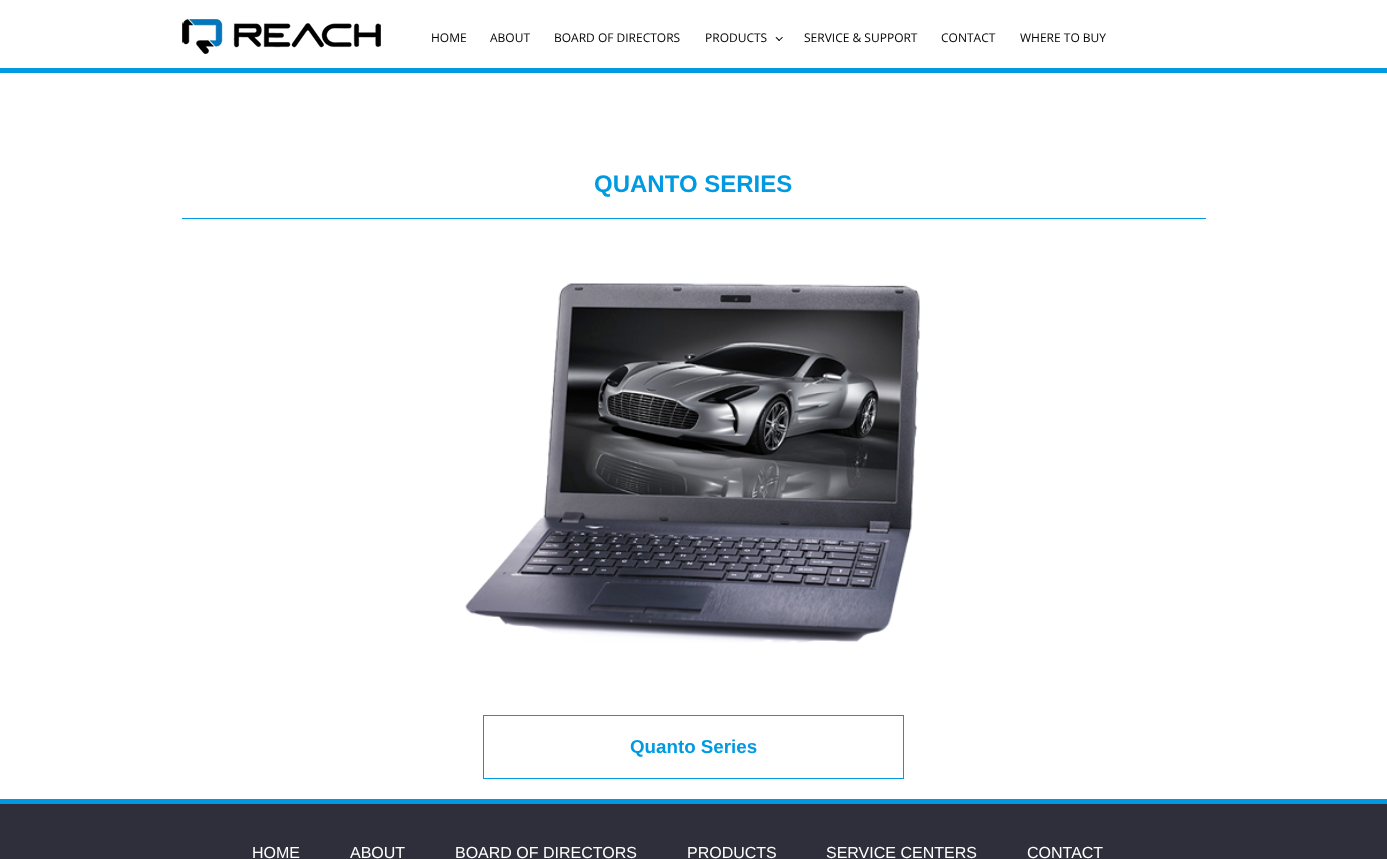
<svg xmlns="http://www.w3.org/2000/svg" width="1387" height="859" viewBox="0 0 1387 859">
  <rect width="100%" height="100%" fill="#ffffff"/>
  <rect x="0" y="68" width="1387" height="5" fill="#009ae1"/>
  <image x="182" y="19" width="199" height="35" href="img1.png"/>
  <text x="431" y="42" font-family="Open Sans" font-size="12" fill="#000000">HOME</text>
  <text x="490" y="42" font-family="Open Sans" font-size="12" fill="#000000">ABOUT</text>
  <text x="554" y="42" font-family="Open Sans" font-size="12" fill="#000000">BOARD OF DIRECTORS</text>
  <text x="705" y="42" font-family="Open Sans" font-size="12" fill="#000000">PRODUCTS</text>
  <path d="M782 37L783 37.5L779 41L778.5 40.5Z" fill="#000000"/>
  <path d="M776.5 37L780 40.5L779 41L775.5 37.5Z" fill="#000000"/>
  <text x="804" y="42" font-family="Open Sans" font-size="12" fill="#000000">SERVICE &amp; SUPPORT</text>
  <text x="941" y="42" font-family="Open Sans" font-size="12" fill="#000000">CONTACT</text>
  <text x="1020" y="42" font-family="Open Sans" font-size="12" fill="#000000">WHERE TO BUY</text>
  <rect x="182" y="218" width="1024" height="1" fill="#009ae1"/>
  <text x="594" y="192" font-family="Liberation Sans" font-size="24" font-weight="bold" fill="#009ae1">QUANTO SERIES</text>
  <image x="465" y="283" width="455" height="360" href="img2.png"/>
  <rect x="483.5" y="715.5" width="420" height="63" fill="none" stroke="#009ae1"/>
  <text x="630" y="753" font-family="Liberation Sans" font-size="18.75" font-weight="bold" fill="#009ae1">Quanto Series</text>
  <rect x="0" y="804" width="1387" height="55" fill="#2f2f3b"/>
  <rect x="0" y="799" width="1387" height="5" fill="#009ae1"/>
  <text x="252" y="858" font-family="Liberation Sans" font-size="16" fill="#ffffff">HOME</text>
  <text x="350" y="858" font-family="Liberation Sans" font-size="16" fill="#ffffff">ABOUT</text>
  <text x="455" y="858" font-family="Liberation Sans" font-size="16" fill="#ffffff">BOARD OF DIRECTORS</text>
  <text x="687" y="858" font-family="Liberation Sans" font-size="16" fill="#ffffff">PRODUCTS</text>
  <text x="826" y="858" font-family="Liberation Sans" font-size="16" fill="#ffffff">SERVICE CENTERS</text>
  <text x="1027" y="858" font-family="Liberation Sans" font-size="16" fill="#ffffff">CONTACT</text>
</svg>
